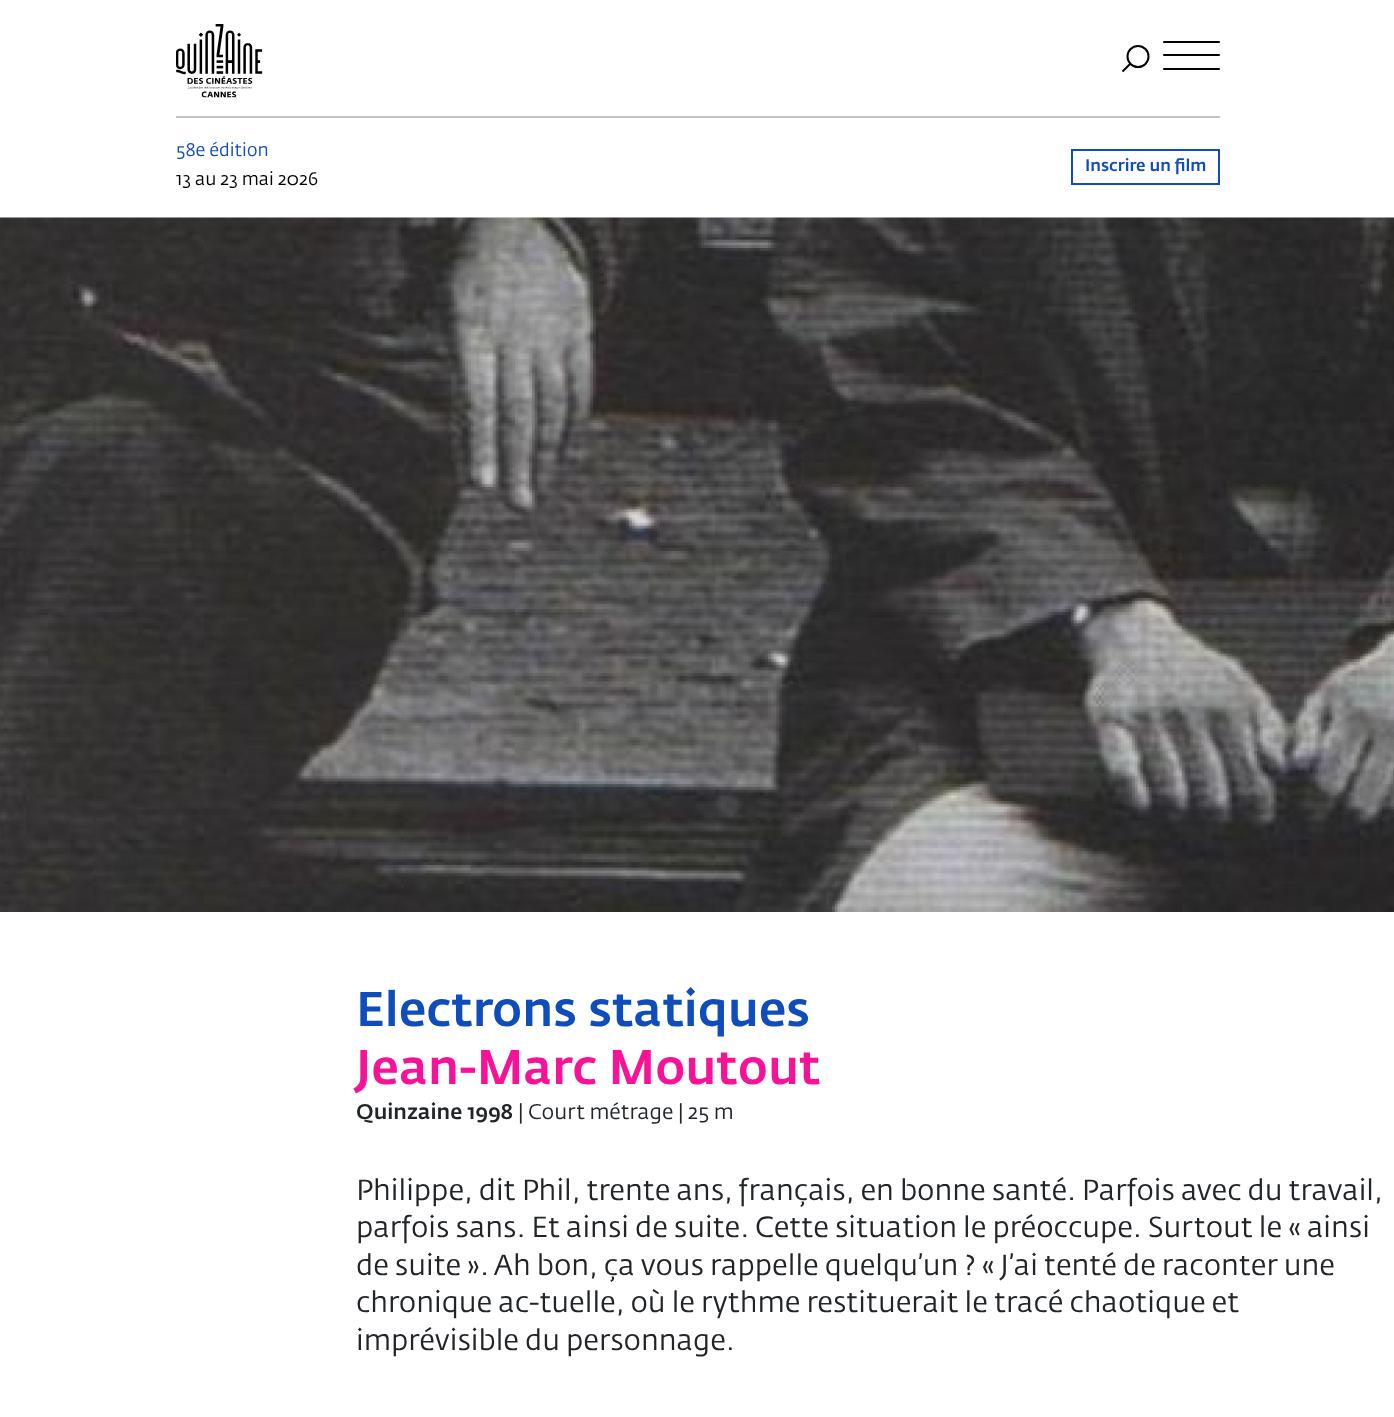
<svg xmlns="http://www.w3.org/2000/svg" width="1394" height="1417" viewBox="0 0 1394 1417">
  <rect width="100%" height="100%" fill="#ffffff"/>
  <rect x="176" y="116" width="1044" height="2" fill="#c3c3c3"/>
  <image x="176" y="24" width="87" height="74" href="img1.png"/>
  <circle cx="1138" cy="56.5" r="10.5" fill="none" stroke="#000000" stroke-width="2"/>
  <path d="M1122.5 71.5L1130 64" fill="none" stroke="#000000" stroke-width="2"/>
  <rect x="1163" y="41" width="57" height="2" rx="1" fill="#000000"/>
  <rect x="1163" y="54" width="57" height="2" rx="1" fill="#000000"/>
  <rect x="1163" y="68" width="57" height="2" rx="1" fill="#000000"/>
  <text x="176" y="156" font-family="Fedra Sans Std" font-size="18" fill="#0f4dbc">58e édition</text>
  <text x="176" y="185" font-family="Fedra Sans Std" font-size="18" fill="#000000">13 au 23 mai 2026</text>
  <rect x="1072" y="150" width="147" height="34" fill="none" stroke="#0f4dbc" stroke-width="2"/>
  <text x="1085" y="171" font-family="Fedra Sans Std" font-size="16.5" font-weight="500" fill="#0f4dbc">Inscrire un film</text>
  <image x="0" y="217" width="1394" height="695" href="img2.png"/>
  <text x="356" y="1026" font-family="Fedra Sans Std" font-size="48" font-weight="500" fill="#0f4dbc">Electrons statiques</text>
  <text x="356" y="1084" font-family="Fedra Sans Std" font-size="48" font-weight="500" fill="#f81297">Jean-Marc Moutout</text>
  <text x="356" y="1119" font-family="Fedra Sans Std" font-size="21" font-weight="500" fill="#212529">Quinzaine 1998</text>
  <text x="518" y="1119" font-family="Fedra Sans Std" font-size="21" fill="#212529">| Court métrage | 25 m</text>
  <text x="356" y="1200" font-family="Fedra Sans Std" font-size="28.8" fill="#212529">Philippe, dit Phil, trente ans, français, en bonne santé. Parfois avec du travail,</text>
  <text x="356" y="1237" font-family="Fedra Sans Std" font-size="28.8" fill="#212529">parfois sans. Et ainsi de suite. Cette situation le préoccupe. Surtout le « ainsi</text>
  <text x="356" y="1275" font-family="Fedra Sans Std" font-size="28.8" fill="#212529">de suite ». Ah bon, ça vous rappelle quelqu’un ? « J’ai tenté de raconter une</text>
  <text x="356" y="1312" font-family="Fedra Sans Std" font-size="28.8" fill="#212529">chronique ac-tuelle, où le rythme restituerait le tracé chaotique et</text>
  <text x="356" y="1350" font-family="Fedra Sans Std" font-size="28.8" fill="#212529">imprévisible du personnage.</text>
</svg>
